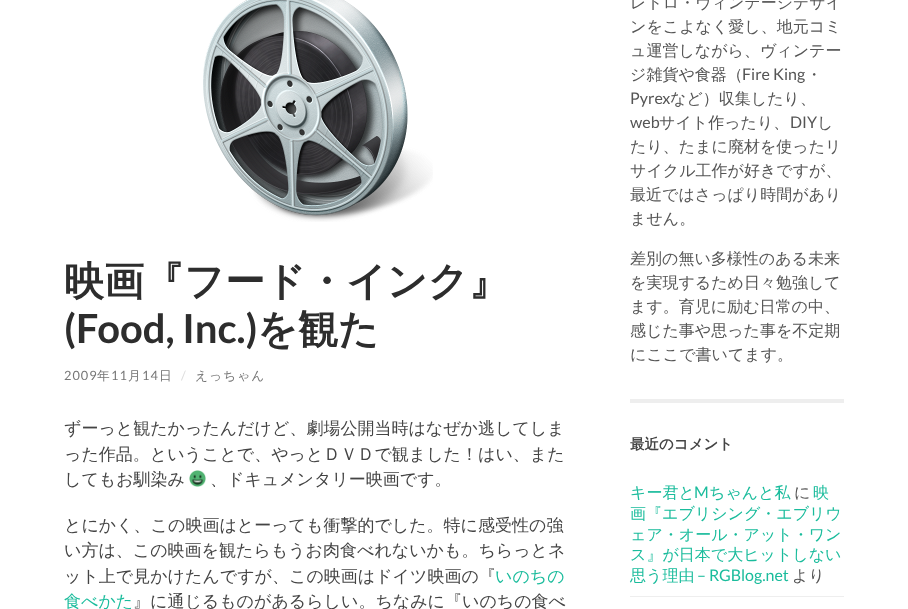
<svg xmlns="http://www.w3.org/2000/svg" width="908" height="609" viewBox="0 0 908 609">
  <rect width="100%" height="100%" fill="#ffffff"/>
  <image x="203" y="0" width="230" height="222" href="img1.png"/>
  <text x="64" y="295" font-family="WenQuanYi Zen Hei" font-size="40" font-weight="bold" fill="#2d2d2d">映画『フード・インク』</text>
  <text x="64" y="343" font-family="Lato" font-size="40" font-weight="bold" fill="#2d2d2d">(Food, Inc.)</text>
  <text x="257" y="343" font-family="WenQuanYi Zen Hei" font-size="40" font-weight="bold" fill="#2d2d2d">を観た</text>
  <text x="64" y="380" font-family="Lato" font-size="12.75" letter-spacing="1" fill="#767676">2009</text>
  <text x="97" y="380" font-family="WenQuanYi Zen Hei" font-size="12.75" font-weight="500" letter-spacing="1" fill="#767676">年</text>
  <text x="111" y="380" font-family="Lato" font-size="12.75" letter-spacing="1" fill="#767676">11</text>
  <text x="128" y="380" font-family="WenQuanYi Zen Hei" font-size="12.75" font-weight="500" letter-spacing="1" fill="#767676">月</text>
  <text x="142" y="380" font-family="Lato" font-size="12.75" letter-spacing="1" fill="#767676">14</text>
  <text x="159" y="380" font-family="WenQuanYi Zen Hei" font-size="12.75" font-weight="500" letter-spacing="1" fill="#767676">日</text>
  <text x="181" y="380" font-family="Lato" font-size="12.75" letter-spacing="1" fill="#dddddd">/</text>
  <text x="195" y="380" font-family="WenQuanYi Zen Hei" font-size="12.75" font-weight="500" letter-spacing="1" fill="#767676">えっちゃん</text>
  <text x="64" y="434" font-family="WenQuanYi Zen Hei" font-size="17" font-weight="500" fill="#444444">ずーっと観たかったんだけど、劇場公開当時はなぜか逃してしま</text>
  <text x="64" y="460" font-family="WenQuanYi Zen Hei" font-size="17" font-weight="500" fill="#444444">った作品。ということで、やっとＤＶＤで観ました！はい、また</text>
  <text x="64" y="485" font-family="WenQuanYi Zen Hei" font-size="17" font-weight="500" fill="#444444">してもお馴染み</text>
  <image x="189" y="470" width="17" height="17" href="img2.png"/>
  <text x="210" y="485" font-family="WenQuanYi Zen Hei" font-size="17" font-weight="500" fill="#444444">、ドキュメンタリー映画です。</text>
  <text x="64" y="531" font-family="WenQuanYi Zen Hei" font-size="17" font-weight="500" fill="#444444">とにかく、この映画はとーっても衝撃的でした。特に感受性の強</text>
  <text x="64" y="556" font-family="WenQuanYi Zen Hei" font-size="17" font-weight="500" fill="#444444">い方は、この映画を観たらもうお肉食べれないかも。ちらっとネ</text>
  <text x="64" y="582" font-family="WenQuanYi Zen Hei" font-size="17" font-weight="500" fill="#444444">ット上で見かけたんですが、この映画はドイツ映画の『</text>
  <text x="495" y="582" font-family="WenQuanYi Zen Hei" font-size="17" font-weight="500" fill="#1abc9c">いのちの</text>
  <text x="64" y="607" font-family="WenQuanYi Zen Hei" font-size="17" font-weight="500" fill="#1abc9c">食べかた</text>
  <text x="133" y="607" font-family="WenQuanYi Zen Hei" font-size="17" font-weight="500" fill="#444444">』に通じるものがあるらしい。ちなみに『いのちの食べ</text>
  <rect x="630" y="399" width="214" height="4" fill="#eeeeee"/>
  <text x="630" y="8" font-family="WenQuanYi Zen Hei" font-size="16" font-weight="500" fill="#555555">レトロ・ヴィンテージデザイ</text>
  <text x="630" y="32" font-family="WenQuanYi Zen Hei" font-size="16" font-weight="500" fill="#555555">ンをこよなく愛し、地元コミ</text>
  <text x="630" y="56" font-family="WenQuanYi Zen Hei" font-size="16" font-weight="500" fill="#555555">ュ運営しながら、ヴィンテー</text>
  <text x="630" y="80" font-family="WenQuanYi Zen Hei" font-size="16" font-weight="500" fill="#555555">ジ雑貨や食器（</text>
  <text x="742" y="80" font-family="Lato" font-size="16" fill="#555555">Fire King</text>
  <text x="806" y="80" font-family="WenQuanYi Zen Hei" font-size="16" font-weight="500" fill="#555555">・</text>
  <text x="630" y="104" font-family="Lato" font-size="16" fill="#555555">Pyrex</text>
  <text x="670" y="104" font-family="WenQuanYi Zen Hei" font-size="16" font-weight="500" fill="#555555">など）収集したり、</text>
  <text x="630" y="128" font-family="Lato" font-size="16" fill="#555555">web</text>
  <text x="659" y="128" font-family="WenQuanYi Zen Hei" font-size="16" font-weight="500" fill="#555555">サイト作ったり、</text>
  <text x="790" y="128" font-family="Lato" font-size="16" fill="#555555">DIY</text>
  <text x="817" y="128" font-family="WenQuanYi Zen Hei" font-size="16" font-weight="500" fill="#555555">し</text>
  <text x="630" y="152" font-family="WenQuanYi Zen Hei" font-size="16" font-weight="500" fill="#555555">たり、たまに廃材を使ったリ</text>
  <text x="630" y="176" font-family="WenQuanYi Zen Hei" font-size="16" font-weight="500" fill="#555555">サイクル工作が好きですが、</text>
  <text x="630" y="200" font-family="WenQuanYi Zen Hei" font-size="16" font-weight="500" fill="#555555">最近ではさっぱり時間があり</text>
  <text x="630" y="224" font-family="WenQuanYi Zen Hei" font-size="16" font-weight="500" fill="#555555">ません。</text>
  <text x="630" y="264" font-family="WenQuanYi Zen Hei" font-size="16" font-weight="500" fill="#555555">差別の無い多様性のある未来</text>
  <text x="630" y="288" font-family="WenQuanYi Zen Hei" font-size="16" font-weight="500" fill="#555555">を実現するため日々勉強して</text>
  <text x="630" y="312" font-family="WenQuanYi Zen Hei" font-size="16" font-weight="500" fill="#555555">ます。育児に励む日常の中、</text>
  <text x="630" y="336" font-family="WenQuanYi Zen Hei" font-size="16" font-weight="500" fill="#555555">感じた事や思った事を不定期</text>
  <text x="630" y="360" font-family="WenQuanYi Zen Hei" font-size="16" font-weight="500" fill="#555555">にここで書いてます。</text>
  <text x="630" y="449" font-family="WenQuanYi Zen Hei" font-size="14.5" font-weight="bold" fill="#444444">最近のコメント</text>
  <text x="630" y="498" font-family="WenQuanYi Zen Hei" font-size="16" font-weight="500" fill="#1abc9c">キー君と</text>
  <text x="694" y="498" font-family="Lato" font-size="16" fill="#1abc9c">M</text>
  <text x="709" y="498" font-family="WenQuanYi Zen Hei" font-size="16" font-weight="500" fill="#1abc9c">ちゃんと私</text>
  <text x="794" y="498" font-family="WenQuanYi Zen Hei" font-size="16" font-weight="500" fill="#555555">に</text>
  <text x="813" y="498" font-family="WenQuanYi Zen Hei" font-size="16" font-weight="500" fill="#1abc9c">映</text>
  <text x="630" y="519" font-family="WenQuanYi Zen Hei" font-size="16" font-weight="500" fill="#1abc9c">画『エブリシング・エブリウ</text>
  <text x="630" y="540" font-family="WenQuanYi Zen Hei" font-size="16" font-weight="500" fill="#1abc9c">ェア・オール・アット・ワン</text>
  <text x="630" y="560" font-family="WenQuanYi Zen Hei" font-size="16" font-weight="500" fill="#1abc9c">ス』が日本で大ヒットしない</text>
  <text x="630" y="581" font-family="WenQuanYi Zen Hei" font-size="16" font-weight="500" fill="#1abc9c">思う理由</text>
  <text x="697" y="581" font-family="Lato" font-size="16" fill="#1abc9c">– RGBlog.net</text>
  <text x="792" y="581" font-family="WenQuanYi Zen Hei" font-size="16" font-weight="500" fill="#555555">より</text>
  <rect x="630" y="596" width="214" height="1" fill="#eeeeee"/>
</svg>
